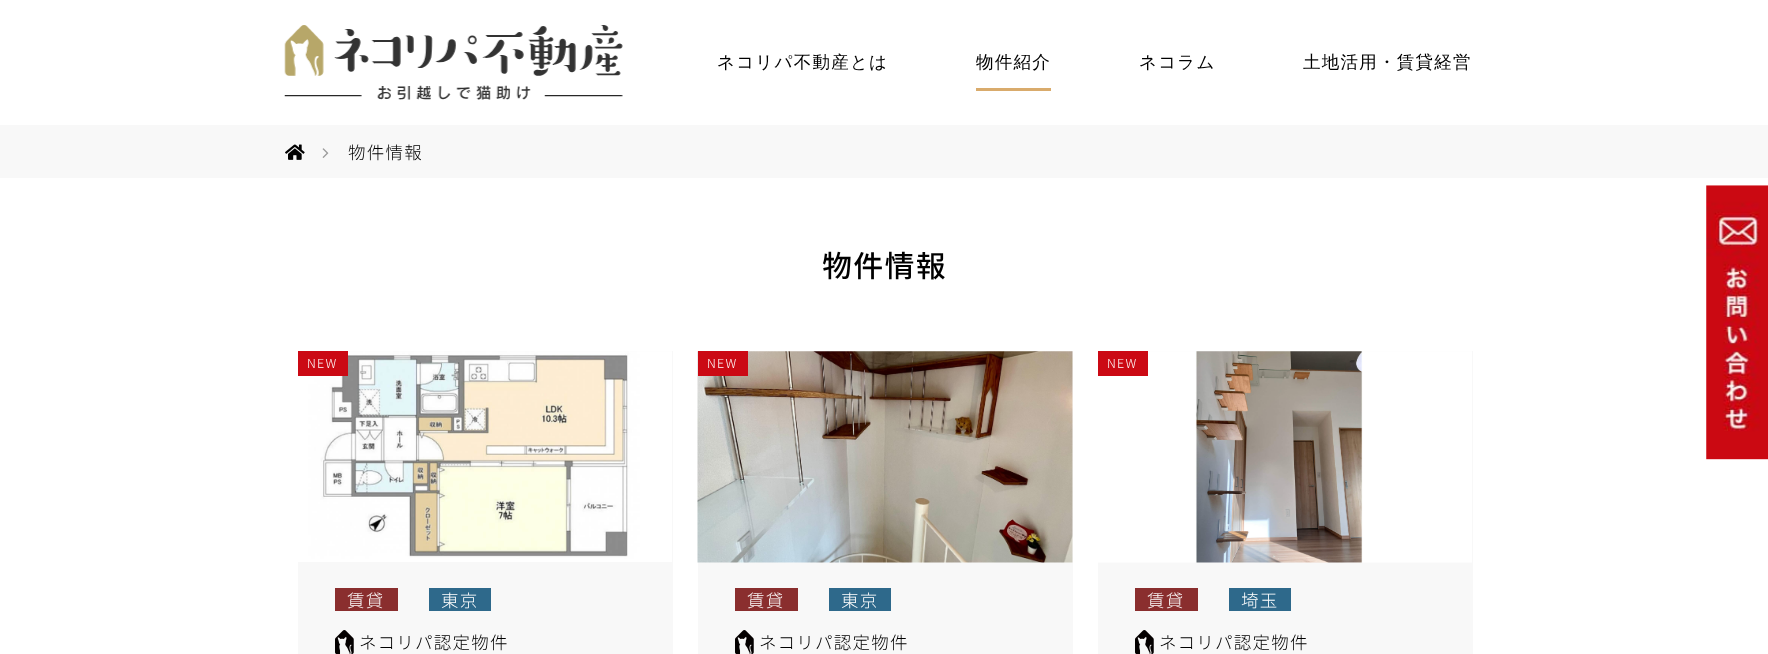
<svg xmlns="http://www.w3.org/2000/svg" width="1768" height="654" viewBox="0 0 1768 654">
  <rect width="100%" height="100%" fill="#ffffff"/>
  <image x="284" y="25" width="339" height="75" href="img1.png"/>
  <text x="717" y="68" font-family="WenQuanYi Zen Hei" font-size="17.5" font-weight="500" letter-spacing="1.25" fill="#000000">ネコリパ不動産とは</text>
  <text x="976" y="68" font-family="WenQuanYi Zen Hei" font-size="17.5" font-weight="500" letter-spacing="1.25" fill="#000000">物件紹介</text>
  <rect x="976" y="88" width="75" height="3" fill="#d9ab6c"/>
  <text x="1139" y="68" font-family="WenQuanYi Zen Hei" font-size="17.5" font-weight="500" letter-spacing="1.25" fill="#000000">ネコラム</text>
  <text x="1303" y="68" font-family="WenQuanYi Zen Hei" font-size="17.5" font-weight="500" letter-spacing="1.25" fill="#000000">土地活用・賃貸経営</text>
  <image x="1706" y="185" width="62" height="275" href="img2.png"/>
  <rect x="0" y="125" width="1768" height="53" fill="#f8f8f8"/>
  <image x="285" y="144" width="20" height="16" href="img3.png"/>
  <image x="322" y="148" width="7" height="10" href="img4.png"/>
  <text x="348" y="159" font-family="Noto Sans JP" font-size="17.5" font-weight="300" letter-spacing="1.25" fill="#000000">物件情報</text>
  <text x="822" y="277" font-family="Noto Sans JP" font-size="30" font-weight="500" letter-spacing="1.25" fill="#000000">物件情報</text>
  <rect x="298" y="351" width="375" height="303" fill="#f8f8f8"/>
  <image x="298" y="351" width="374" height="211" href="img5.png"/>
  <rect x="298" y="351" width="50" height="25" fill="#cb0914"/>
  <text x="307" y="368" font-family="Noto Sans JP" font-size="12.5" font-weight="300" letter-spacing="1.25" fill="#ffffff">NEW</text>
  <rect x="335" y="588" width="63" height="23" fill="#8a2e2e"/>
  <text x="347" y="607" font-family="Noto Sans JP" font-size="17.5" font-weight="300" letter-spacing="1.25" fill="#ffffff">賃貸</text>
  <rect x="429" y="588" width="62" height="23" fill="#2e698b"/>
  <text x="441" y="607" font-family="Noto Sans JP" font-size="17.5" font-weight="300" letter-spacing="1.25" fill="#ffffff">東京</text>
  <image x="335" y="630" width="19" height="24" href="img6.png"/>
  <text x="359" y="649" font-family="Noto Sans JP" font-size="17.5" font-weight="300" letter-spacing="1.25" fill="#000000">ネコリパ認定物件</text>
  <rect x="698" y="351" width="375" height="303" fill="#f8f8f8"/>
  <image x="697" y="351" width="376" height="212" href="img7.png"/>
  <rect x="698" y="351" width="50" height="25" fill="#cb0914"/>
  <text x="707" y="368" font-family="Noto Sans JP" font-size="12.5" font-weight="300" letter-spacing="1.25" fill="#ffffff">NEW</text>
  <rect x="735" y="588" width="63" height="23" fill="#8a2e2e"/>
  <text x="747" y="607" font-family="Noto Sans JP" font-size="17.5" font-weight="300" letter-spacing="1.25" fill="#ffffff">賃貸</text>
  <rect x="829" y="588" width="62" height="23" fill="#2e698b"/>
  <text x="841" y="607" font-family="Noto Sans JP" font-size="17.5" font-weight="300" letter-spacing="1.25" fill="#ffffff">東京</text>
  <image x="735" y="630" width="19" height="24" href="img6.png"/>
  <text x="759" y="649" font-family="Noto Sans JP" font-size="17.5" font-weight="300" letter-spacing="1.25" fill="#000000">ネコリパ認定物件</text>
  <rect x="1098" y="351" width="375" height="303" fill="#f8f8f8"/>
  <image x="1098" y="351" width="374" height="212" href="img8.png"/>
  <rect x="1098" y="351" width="50" height="25" fill="#cb0914"/>
  <text x="1107" y="368" font-family="Noto Sans JP" font-size="12.5" font-weight="300" letter-spacing="1.25" fill="#ffffff">NEW</text>
  <rect x="1135" y="588" width="63" height="23" fill="#8a2e2e"/>
  <text x="1147" y="607" font-family="Noto Sans JP" font-size="17.5" font-weight="300" letter-spacing="1.25" fill="#ffffff">賃貸</text>
  <rect x="1229" y="588" width="62" height="23" fill="#2e698b"/>
  <text x="1241" y="607" font-family="Noto Sans JP" font-size="17.5" font-weight="300" letter-spacing="1.25" fill="#ffffff">埼玉</text>
  <image x="1135" y="630" width="19" height="24" href="img6.png"/>
  <text x="1159" y="649" font-family="Noto Sans JP" font-size="17.5" font-weight="300" letter-spacing="1.25" fill="#000000">ネコリパ認定物件</text>
</svg>
